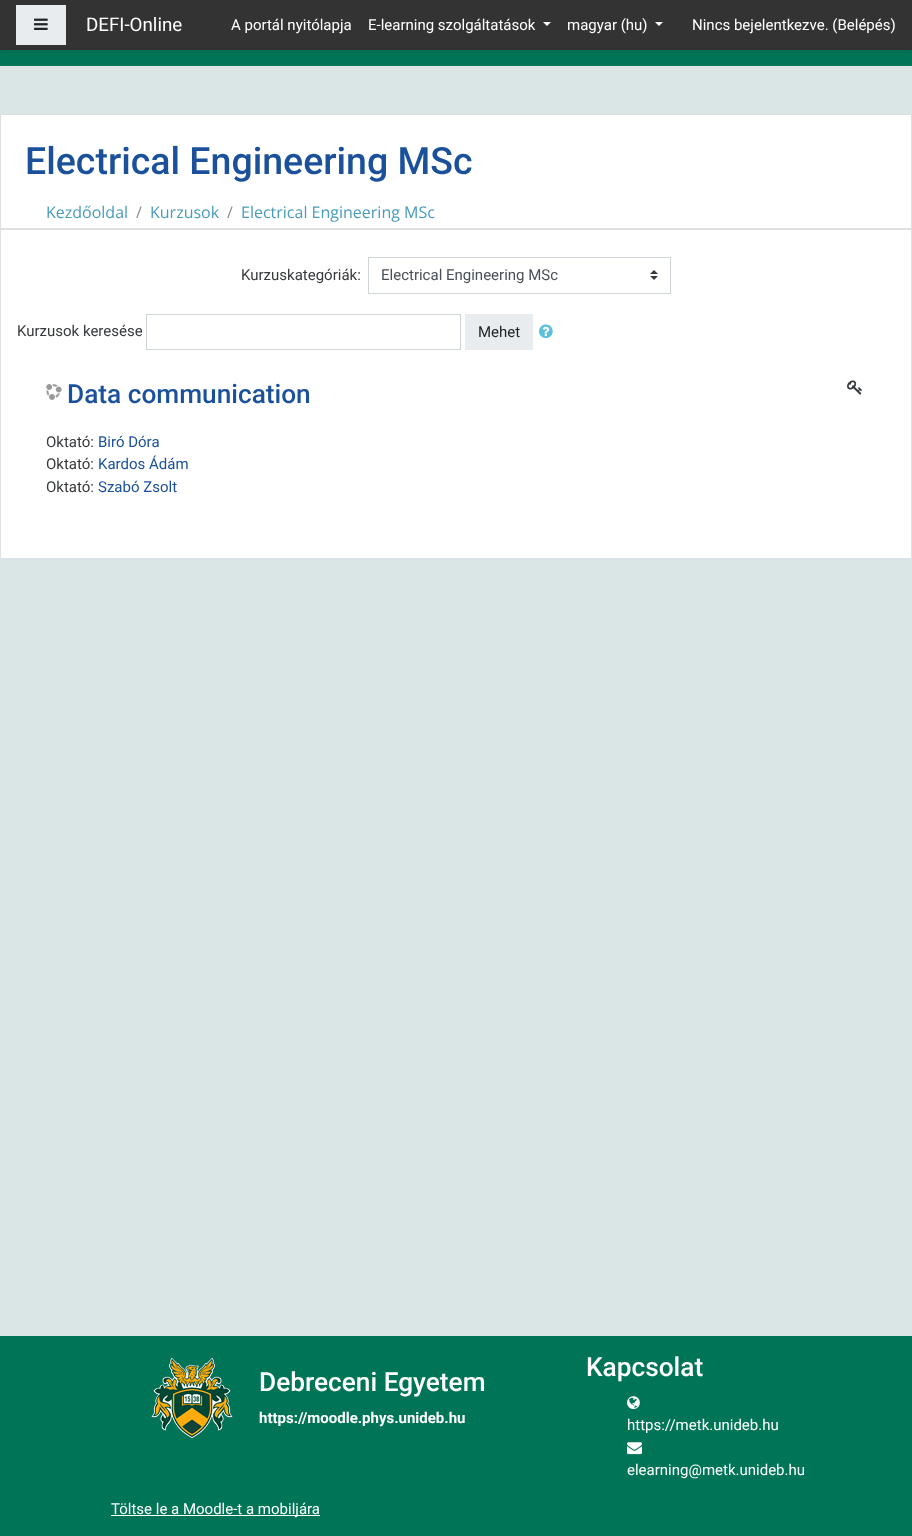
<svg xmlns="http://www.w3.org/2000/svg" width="912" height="1536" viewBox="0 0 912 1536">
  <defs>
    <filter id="blur1" x="-50%" y="-200%" width="200%" height="500%"><feGaussianBlur stdDeviation="2"/></filter>
  </defs>
  <rect width="100%" height="100%" fill="#dae6e5"/>
  <rect x="0" y="50" width="912" height="16" fill="#007456"/>
  <rect x="0" y="2" width="912" height="50" fill="#000000" fill-opacity="0.08" filter="url(#blur1)"/>
  <rect x="0" y="0" width="912" height="50" fill="#333333"/>
  <rect x="16" y="5" width="50" height="40" fill="#e9ecef"/>
  <image x="34" y="18" width="14" height="12" href="img1.png"/>
  <text x="86" y="31" font-family="Roboto" font-size="18.75" fill="#ffffff">DEFI-Online</text>
  <text x="231" y="30" font-family="Roboto" font-size="15" fill="#ffffff">A portál nyitólapja</text>
  <text x="368" y="30" font-family="Roboto" font-size="15" fill="#ffffff">E-learning szolgáltatások</text>
  <path d="M543 22H551L547 26Z" fill="#ffffff"/>
  <text x="567" y="30" font-family="Roboto" font-size="15" fill="#ffffff">magyar (hu)</text>
  <path d="M655 22H663L659 26Z" fill="#ffffff"/>
  <text x="692" y="30" font-family="Roboto" font-size="15" fill="#ffffff">Nincs bejelentkezve. (Belépés)</text>
  <rect x="0.5" y="114.5" width="911" height="114" fill="#ffffff" stroke="#dfdfdf"/>
  <text x="25" y="174" font-family="Roboto" font-size="37.5" font-weight="500" fill="#1a519a">Electrical Engineering MSc</text>
  <text x="46" y="218" font-family="Open Sans" font-size="16" fill="#499cbb">Kezdőoldal</text>
  <text x="136" y="218" font-family="Open Sans" font-size="16" fill="#868e96">/</text>
  <text x="150" y="218" font-family="Open Sans" font-size="16" fill="#499cbb">Kurzusok</text>
  <text x="227" y="218" font-family="Open Sans" font-size="16" fill="#868e96">/</text>
  <text x="241" y="218" font-family="Open Sans" font-size="16" fill="#499cbb">Electrical Engineering MSc</text>
  <rect x="0.5" y="229.5" width="911" height="329" fill="#ffffff" stroke="#dee2e6"/>
  <text x="241" y="280" font-family="Roboto" font-size="15" fill="#373a3c">Kurzuskategóriák:</text>
  <image x="650" y="270" width="8" height="10" href="img2.png"/>
  <rect x="368.5" y="257.5" width="302" height="36" fill="none" stroke="#ced4da"/>
  <text x="381" y="280" font-family="Roboto" font-size="15" fill="#495057">Electrical Engineering MSc</text>
  <text x="17" y="336" font-family="Roboto" font-size="15" fill="#373a3c">Kurzusok keresése</text>
  <rect x="146.5" y="314.5" width="314" height="35" fill="none" stroke="#ced4da"/>
  <rect x="465" y="314" width="68" height="36" fill="#e9ecef"/>
  <text x="478" y="337" font-family="Roboto" font-size="15" fill="#212529">Mehet</text>
  <image x="539" y="324" width="14" height="15" href="img3.png"/>
  <image x="46" y="384" width="16" height="16" href="img4.png"/>
  <text x="67" y="403" font-family="Roboto" font-size="26.25" font-weight="500" fill="#1a519a">Data communication</text>
  <image x="847" y="380" width="15" height="15" href="img5.png"/>
  <text x="46" y="447" font-family="Roboto" font-size="15" fill="#373a3c">Oktató:</text>
  <text x="98" y="447" font-family="Roboto" font-size="15" fill="#1a519a">Biró Dóra</text>
  <text x="46" y="469" font-family="Roboto" font-size="15" fill="#373a3c">Oktató:</text>
  <text x="98" y="469" font-family="Roboto" font-size="15" fill="#1a519a">Kardos Ádám</text>
  <text x="46" y="492" font-family="Roboto" font-size="15" fill="#373a3c">Oktató:</text>
  <text x="98" y="492" font-family="Roboto" font-size="15" fill="#1a519a">Szabó Zsolt</text>
  <rect x="0" y="1336" width="912" height="200" fill="#007456"/>
  <image x="151" y="1357" width="82" height="81" href="img6.png"/>
  <text x="259" y="1391" font-family="Roboto" font-size="26.25" font-weight="500" fill="#ffffff">Debreceni Egyetem</text>
  <text x="259" y="1423" font-family="Roboto" font-size="15" font-weight="bold" fill="#ffffff">https://moodle.phys.unideb.hu</text>
  <text x="586" y="1376" font-family="Roboto" font-size="26.25" font-weight="500" fill="#ffffff">Kapcsolat</text>
  <image x="627" y="1396" width="13" height="14" href="img7.png"/>
  <text x="627" y="1430" font-family="Roboto" font-size="15" fill="#ffffff">https://metk.unideb.hu</text>
  <image x="627" y="1442" width="15" height="13" href="img8.png"/>
  <text x="627" y="1475" font-family="Roboto" font-size="15" fill="#ffffff">elearning@metk.unideb.hu</text>
  <rect x="111" y="1515" width="209" height="1" fill="#ffffff"/>
  <text x="111" y="1514" font-family="Roboto" font-size="15" fill="#ffffff">Töltse le a Moodle-t a mobiljára</text>
</svg>
